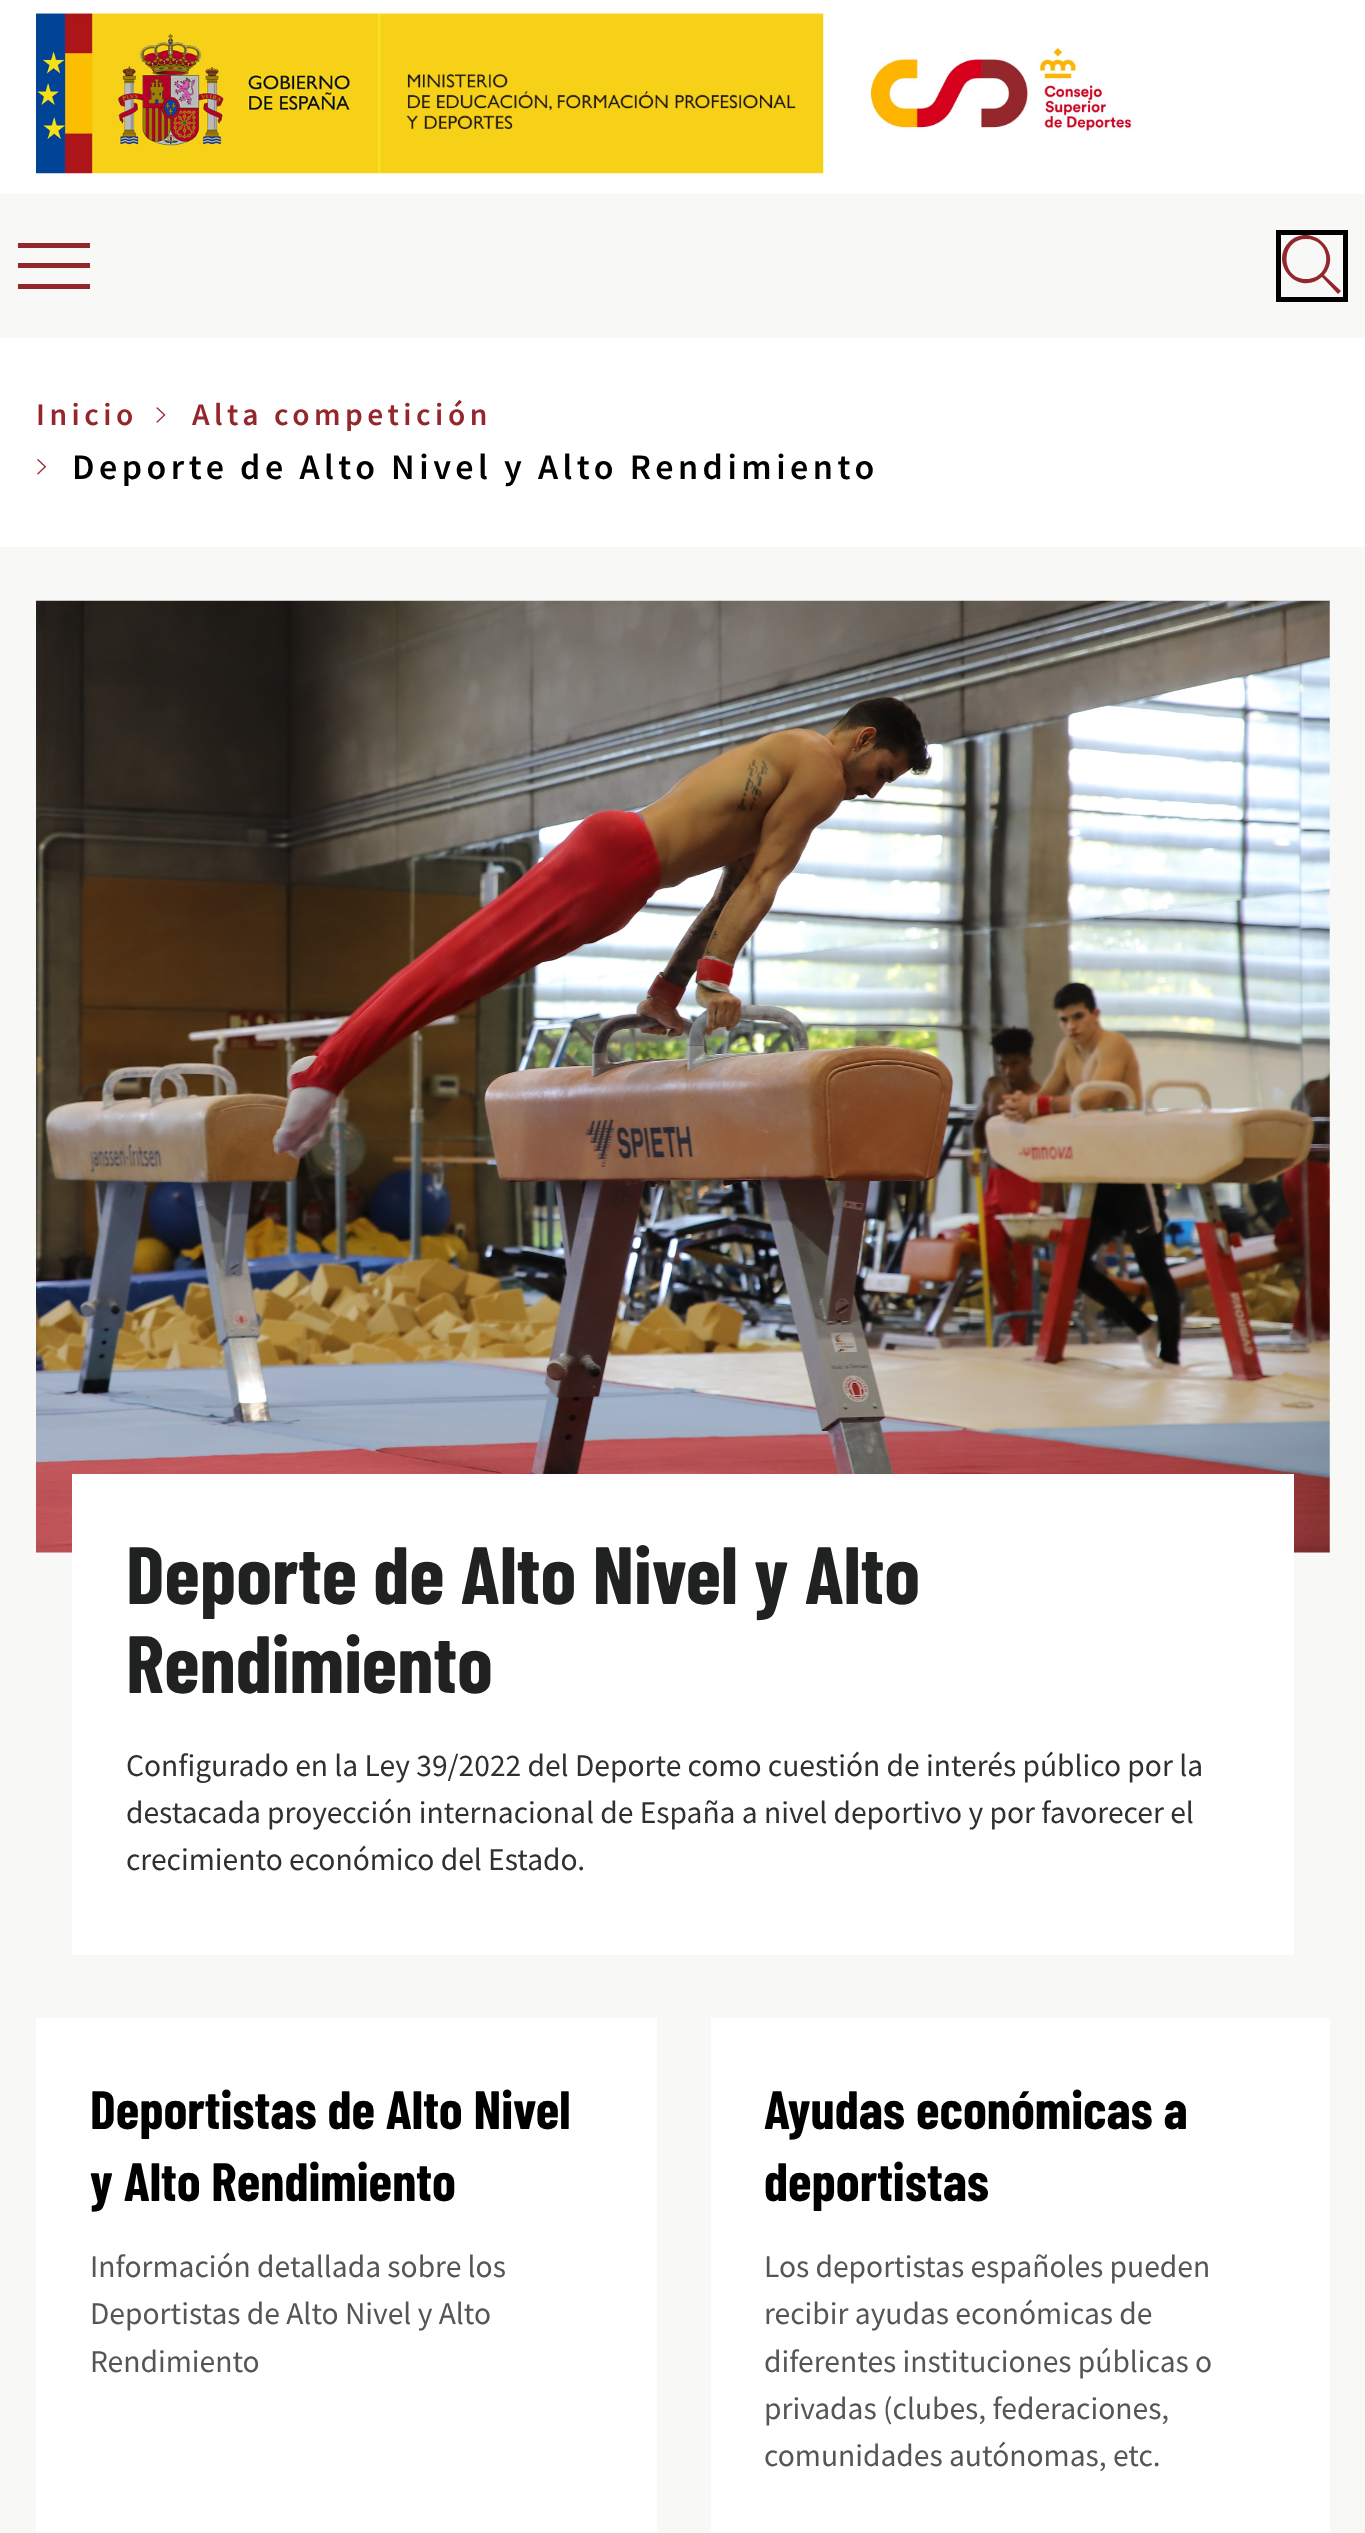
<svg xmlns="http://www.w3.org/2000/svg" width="1365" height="2533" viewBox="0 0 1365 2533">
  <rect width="100%" height="100%" fill="#f8f8f6"/>
  <rect x="0" y="0" width="1365" height="194" fill="#ffffff"/>
  <image x="36" y="13" width="342" height="161" href="img1.png"/>
  <image x="378" y="13" width="446" height="161" href="img2.png"/>
  <image x="823" y="13" width="312" height="160" href="img3.png"/>
  <rect x="18" y="263" width="72" height="5" fill="#93272c"/>
  <rect x="18" y="243" width="72" height="5" fill="#93272c"/>
  <rect x="18" y="284" width="72" height="5" fill="#93272c"/>
  <rect x="1278.5" y="232.5" width="67" height="67" fill="none" stroke="#000000" stroke-width="5"/>
  <path d="M1306 279C1333 279 1333 239 1306 239C1280 239 1280 279 1306 279ZM1324 275L1341 291L1338 294L1322 277C1299 297 1268 264 1289 242C1311 221 1344 252 1324 275Z" fill="#93272c"/>
  <rect x="0" y="338" width="1365" height="209" fill="#ffffff"/>
  <text x="36" y="425" font-family="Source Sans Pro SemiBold" font-size="31.5" font-weight="600" letter-spacing="4.5" fill="#93272c">Inicio</text>
  <image x="156" y="407" width="10" height="16" href="img4.png"/>
  <text x="192" y="425" font-family="Source Sans Pro SemiBold" font-size="31.5" font-weight="600" letter-spacing="4.5" fill="#93272c">Alta competición</text>
  <image x="37" y="459" width="10" height="16" href="img5.png"/>
  <text x="72" y="479" font-family="Source Sans Pro SemiBold" font-size="36" font-weight="600" letter-spacing="4.5" fill="#000000">Deporte de Alto Nivel y Alto Rendimiento</text>
  <image x="36" y="600" width="1294" height="953" href="img6.png"/>
  <rect x="72" y="1474" width="1222" height="481" fill="#ffffff"/>
  <text x="126" y="1604" font-family="Barlow Condensed" font-size="81" font-weight="bold" fill="#202121">Deporte de Alto Nivel y Alto</text>
  <text x="126" y="1693" font-family="Barlow Condensed" font-size="81" font-weight="bold" fill="#202121">Rendimiento</text>
  <text x="126" y="1776" font-family="Source Sans Pro" font-size="31.5" fill="#303030">Configurado en la Ley 39/2022 del Deporte como cuestión de interés público por la</text>
  <text x="126" y="1823" font-family="Source Sans Pro" font-size="31.5" fill="#303030">destacada proyección internacional de España a nivel deportivo y por favorecer el</text>
  <text x="126" y="1870" font-family="Source Sans Pro" font-size="31.5" fill="#303030">crecimiento económico del Estado.</text>
  <rect x="36" y="2018" width="621" height="515" fill="#ffffff"/>
  <text x="90" y="2129" font-family="Barlow Condensed" font-size="54" font-weight="bold" fill="#000000">Deportistas de Alto Nivel</text>
  <text x="90" y="2201" font-family="Barlow Condensed" font-size="54" font-weight="bold" fill="#000000">y Alto Rendimiento</text>
  <text x="90" y="2277" font-family="Source Sans Pro" font-size="31.5" fill="#555555">Información detallada sobre los</text>
  <text x="90" y="2324" font-family="Source Sans Pro" font-size="31.5" fill="#555555">Deportistas de Alto Nivel y Alto</text>
  <text x="90" y="2372" font-family="Source Sans Pro" font-size="31.5" fill="#555555">Rendimiento</text>
  <rect x="711" y="2018" width="619" height="515" fill="#ffffff"/>
  <text x="764" y="2129" font-family="Barlow Condensed" font-size="54" font-weight="bold" fill="#000000">Ayudas económicas a</text>
  <text x="764" y="2201" font-family="Barlow Condensed" font-size="54" font-weight="bold" fill="#000000">deportistas</text>
  <text x="764" y="2277" font-family="Source Sans Pro" font-size="31.5" fill="#555555">Los deportistas españoles pueden</text>
  <text x="764" y="2324" font-family="Source Sans Pro" font-size="31.5" fill="#555555">recibir ayudas económicas de</text>
  <text x="764" y="2372" font-family="Source Sans Pro" font-size="31.5" fill="#555555">diferentes instituciones públicas o</text>
  <text x="764" y="2419" font-family="Source Sans Pro" font-size="31.5" fill="#555555">privadas (clubes, federaciones,</text>
  <text x="764" y="2466" font-family="Source Sans Pro" font-size="31.5" fill="#555555">comunidades autónomas, etc.</text>
</svg>
